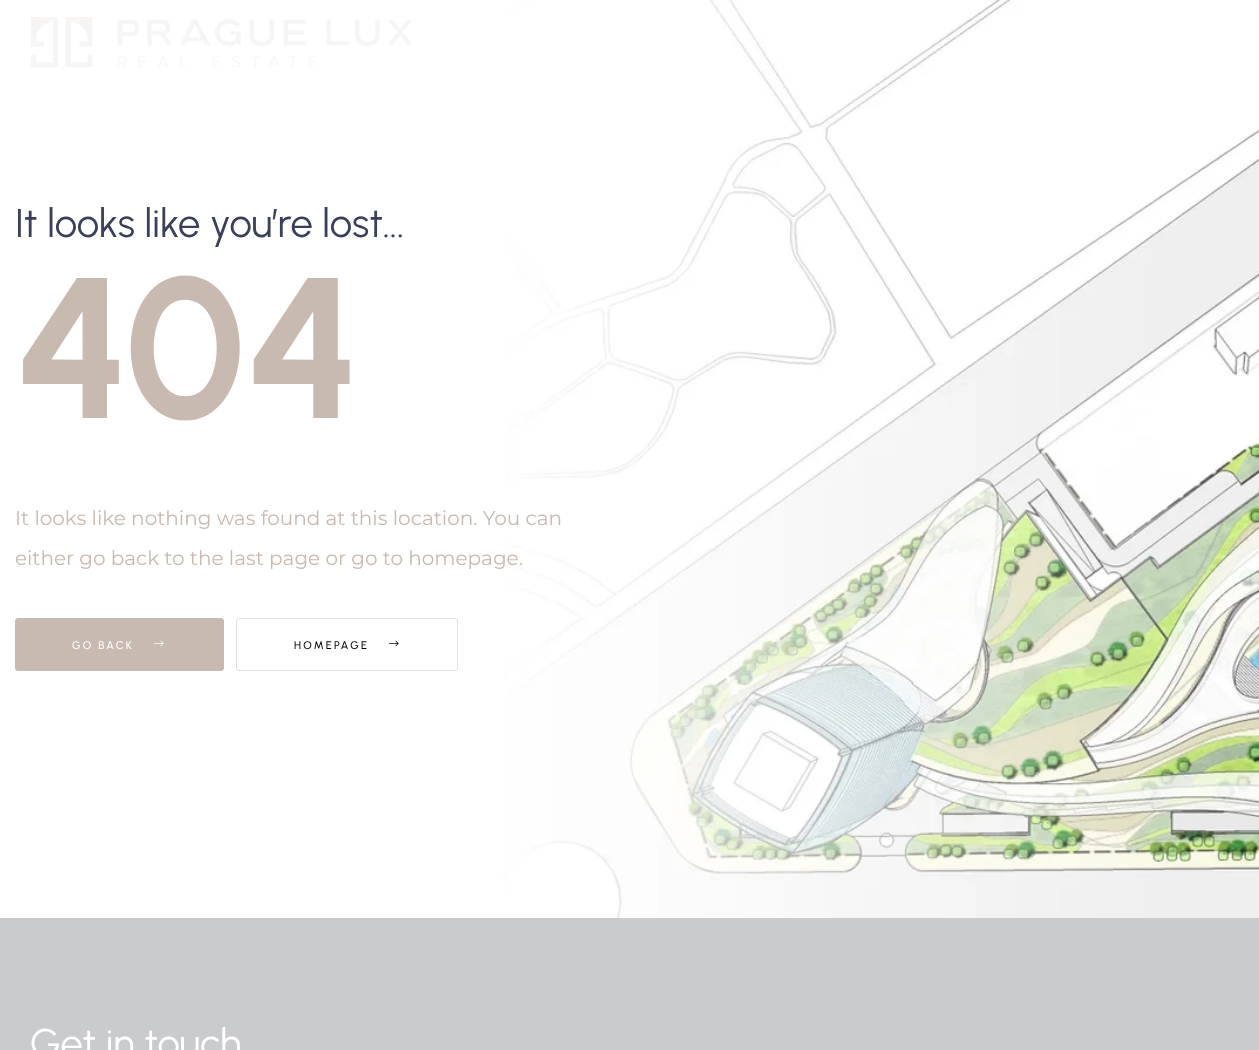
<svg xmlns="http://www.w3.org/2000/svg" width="1259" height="1050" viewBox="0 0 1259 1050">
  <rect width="100%" height="100%" fill="#cacbcf"/>
  <rect x="0" y="0" width="503" height="918" fill="#ffffff"/>
  <image x="31" y="17" width="382" height="50" href="img1.png"/>
  <image x="503" y="0" width="756" height="918" href="img2.png"/>
  <text x="15" y="237" font-family="Urbanist" font-size="40" fill="#3a405a">It looks like you’re lost...</text>
  <text x="15" y="418" font-family="Urbanist" font-size="200" font-weight="bold" fill="#c8bab0">404</text>
  <text x="15" y="525" font-family="Montserrat" font-size="20" font-weight="100" fill="#c8bab0">It looks like nothing was found at this location. You can</text>
  <text x="15" y="565" font-family="Montserrat" font-size="20" font-weight="100" fill="#c8bab0">either go back to the last page or go to homepage.</text>
  <rect x="15.5" y="618.5" width="208" height="52" rx="2.5" fill="#c8bab0" stroke="#c8bab0"/>
  <text x="72" y="649" font-family="Urbanist" font-size="11" font-weight="500" letter-spacing="2.25" fill="#ffffff">GO BACK</text>
  <image x="154" y="640" width="10" height="7" href="img3.png"/>
  <rect x="236.5" y="618.5" width="221" height="52" rx="2.5" fill="none" stroke="#e1e1e1"/>
  <text x="294" y="649" font-family="Urbanist" font-size="11" font-weight="500" letter-spacing="2.25" fill="#000000">HOMEPAGE</text>
  <image x="389" y="640" width="10" height="7" href="img4.png"/>
  <text x="30" y="1057" font-family="Urbanist" font-size="40" fill="#ffffff">Get in touch</text>
</svg>
